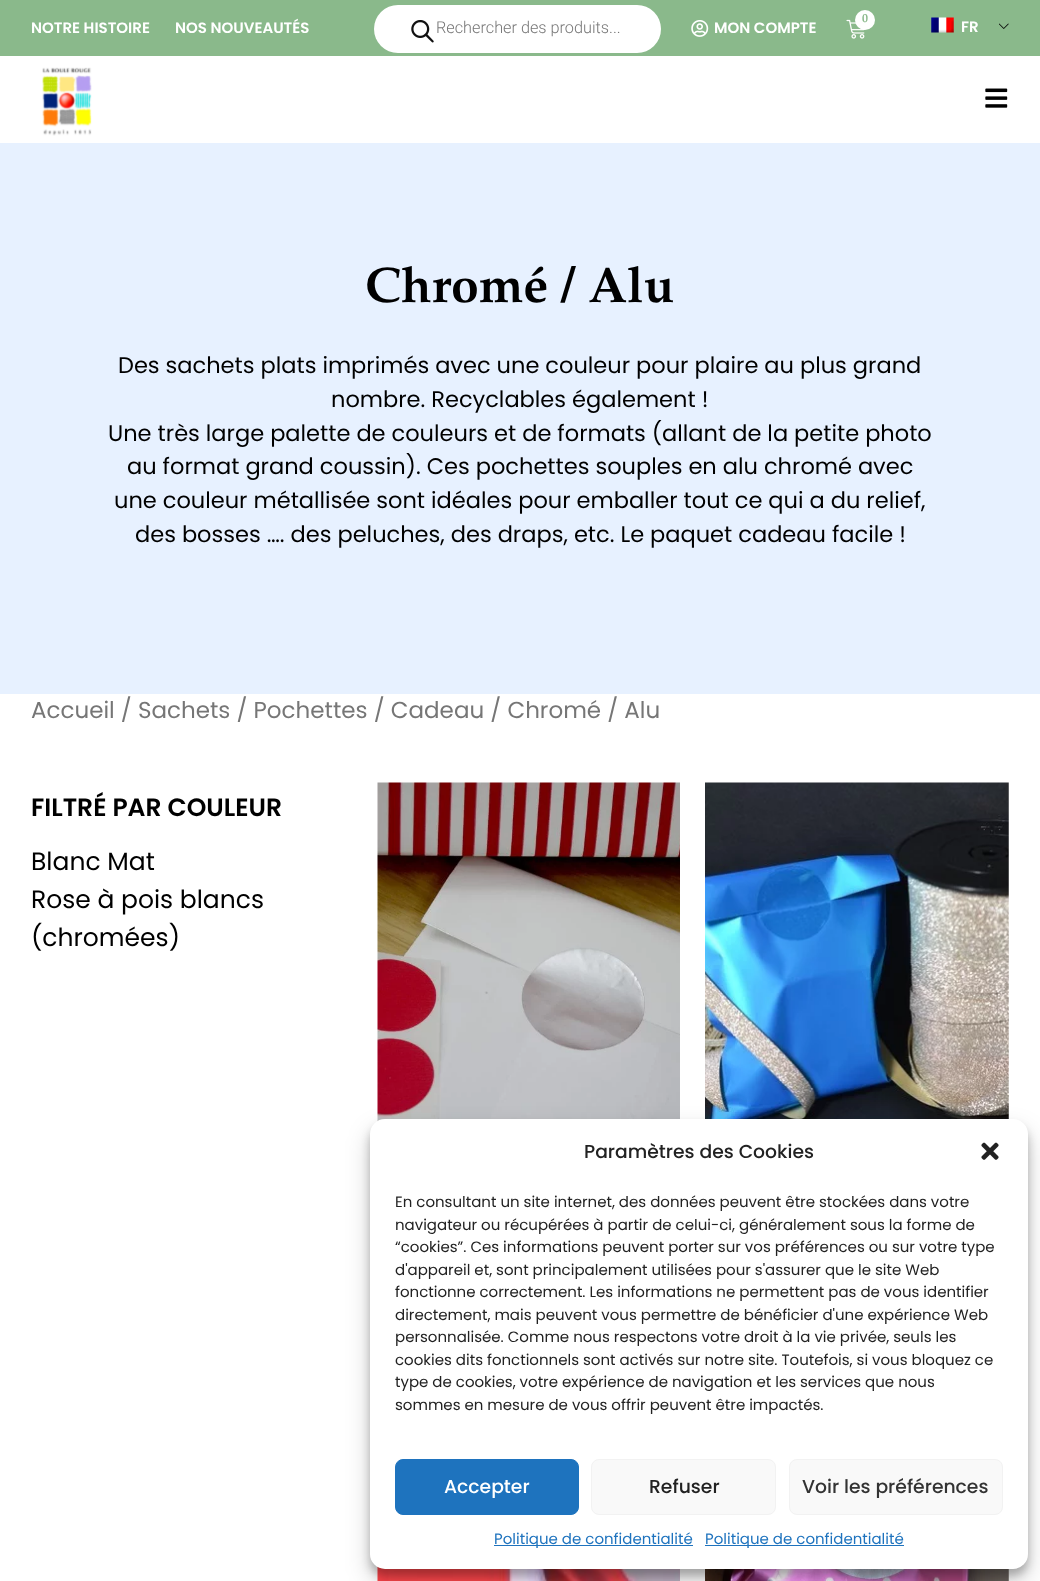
<svg xmlns="http://www.w3.org/2000/svg" width="1040" height="1581" viewBox="0 0 1040 1581">
  <defs>
    <filter id="blur1" x="-50%" y="-200%" width="200%" height="500%"><feGaussianBlur stdDeviation="4"/></filter>
    <filter id="blur2" x="-50%" y="-200%" width="200%" height="500%"><feGaussianBlur stdDeviation="12.5"/></filter>
  </defs>
  <rect width="100%" height="100%" fill="#ffffff"/>
  <rect x="0" y="0" width="1040" height="56" fill="#8ab98b"/>
  <text x="31" y="33" font-family="Poppins" font-size="15" font-weight="600" fill="#ffffff">NOTRE HISTOIRE</text>
  <text x="175" y="33" font-family="Poppins" font-size="15" font-weight="600" fill="#ffffff">NOS NOUVEAUTÉS</text>
  <rect x="374" y="5" width="287" height="48" rx="24" fill="#ffffff"/>
  <image x="411" y="20" width="23" height="23" href="img1.png"/>
  <text x="436" y="33" font-family="Roboto" font-size="16.25" font-weight="300" fill="#767676">Rechercher des produits...</text>
  <image x="846" y="19" width="20" height="20" href="img2.png"/>
  <circle cx="865" cy="20" r="10" fill="#ffffff"/>
  <text x="862" y="22" font-family="Palatino" font-size="12" font-weight="bold" fill="#8ab98b">0</text>
  <image x="691" y="20" width="18" height="17" href="img3.png"/>
  <text x="714" y="33" font-family="Poppins" font-size="15" font-weight="600" fill="#ffffff">MON COMPTE</text>
  <image x="999" y="23" width="10" height="6" href="img4.png"/>
  <image x="931" y="17" width="23" height="16" href="img5.png"/>
  <text x="961" y="32" font-family="Poppins" font-size="15" font-weight="600" fill="#ffffff">FR</text>
  <image x="42" y="67" width="50" height="69" href="img6.png"/>
  <image x="985" y="88" width="23" height="20" href="img7.png"/>
  <rect x="0" y="143" width="1040" height="551" fill="#e7f1ff"/>
  <text x="365" y="302" font-family="Palatino" font-size="50" font-weight="bold" fill="#000000">Chromé / Alu</text>
  <text x="118" y="373" font-family="Poppins" font-size="22.5" fill="#000000">Des sachets plats imprimés avec une couleur pour plaire au plus grand</text>
  <text x="331" y="407" font-family="Poppins" font-size="22.5" fill="#000000">nombre. Recyclables également !</text>
  <text x="108" y="441" font-family="Poppins" font-size="22.5" fill="#000000">Une très large palette de couleurs et de formats (allant de la petite photo</text>
  <text x="127" y="474" font-family="Poppins" font-size="22.5" fill="#000000">au format grand coussin). Ces pochettes souples en alu chromé avec</text>
  <text x="114" y="508" font-family="Poppins" font-size="22.5" fill="#000000">une couleur métallisée sont idéales pour emballer tout ce qui a du relief,</text>
  <text x="135" y="542" font-family="Poppins" font-size="22.5" fill="#000000">des bosses …. des peluches, des draps, etc. Le paquet cadeau facile !</text>
  <text x="31" y="718" font-family="Poppins" font-size="23" fill="#767676">Accueil / Sachets / Pochettes / Cadeau / Chromé / Alu</text>
  <text x="31" y="816" font-family="Poppins" font-size="25" font-weight="600" fill="#000000">FILTRÉ PAR COULEUR</text>
  <text x="31" y="870" font-family="Poppins" font-size="25" fill="#000000">Blanc Mat</text>
  <text x="31" y="908" font-family="Poppins" font-size="25" fill="#000000">Rose à pois blancs</text>
  <text x="31" y="946" font-family="Poppins" font-size="25" fill="#000000">(chromées)</text>
  <image x="377" y="782" width="303" height="340" href="img8.png"/>
  <image x="705" y="782" width="304" height="337" href="img9.png"/>
  <image x="377" y="1566" width="303" height="15" href="img10.png"/>
  <image x="705" y="1569" width="304" height="12" href="img11.png"/>
  <rect x="370" y="1126" width="658" height="450" rx="15" fill="#000000" fill-opacity="0.23" filter="url(#blur1)"/>
  <rect x="370" y="1131" width="658" height="450" rx="15" fill="#000000" fill-opacity="0.19" filter="url(#blur2)"/>
  <rect x="370" y="1119" width="658" height="450" rx="15" fill="#ffffff"/>
  <text x="584" y="1158" font-family="Poppins" font-size="18.75" font-weight="500" fill="#222222">Paramètres des Cookies</text>
  <image x="981" y="1142" width="18" height="18" href="img12.png"/>
  <text x="395" y="1207" font-family="Poppins" font-size="15" fill="#222222">En consultant un site internet, des données peuvent être stockées dans votre</text>
  <text x="395" y="1230" font-family="Poppins" font-size="15" fill="#222222">navigateur ou récupérées à partir de celui-ci, généralement sous la forme de</text>
  <text x="395" y="1252" font-family="Poppins" font-size="15" fill="#222222">“cookies”. Ces informations peuvent porter sur vos préférences ou sur votre type</text>
  <text x="395" y="1275" font-family="Poppins" font-size="15" fill="#222222">d'appareil et, sont principalement utilisées pour s'assurer que le site Web</text>
  <text x="395" y="1297" font-family="Poppins" font-size="15" fill="#222222">fonctionne correctement. Les informations ne permettent pas de vous identifier</text>
  <text x="395" y="1320" font-family="Poppins" font-size="15" fill="#222222">directement, mais peuvent vous permettre de bénéficier d'une expérience Web</text>
  <text x="395" y="1342" font-family="Poppins" font-size="15" fill="#222222">personnalisée. Comme nous respectons votre droit à la vie privée, seuls les</text>
  <text x="395" y="1365" font-family="Poppins" font-size="15" fill="#222222">cookies dits fonctionnels sont activés sur notre site. Toutefois, si vous bloquez ce</text>
  <text x="395" y="1387" font-family="Poppins" font-size="15" fill="#222222">type de cookies, votre expérience de navigation et les services que nous</text>
  <text x="395" y="1410" font-family="Poppins" font-size="15" fill="#222222">sommes en mesure de vous offrir peuvent être impactés.</text>
  <rect x="395.5" y="1459.5" width="183" height="55" rx="7.5" fill="#1e73be" stroke="#1e73be"/>
  <text x="444" y="1493" font-family="Poppins" font-size="18.75" font-weight="500" fill="#ffffff">Accepter</text>
  <rect x="591.5" y="1459.5" width="184" height="55" rx="7.5" fill="#f9f9f9" stroke="#f2f2f2"/>
  <text x="649" y="1493" font-family="Poppins" font-size="18.75" font-weight="500" fill="#222222">Refuser</text>
  <rect x="789.5" y="1459.5" width="213" height="55" rx="7.5" fill="#f9f9f9" stroke="#f2f2f2"/>
  <text x="802" y="1493" font-family="Poppins" font-size="18.75" font-weight="500" fill="#333333">Voir les préférences</text>
  <rect x="494" y="1545" width="199" height="1" fill="#1e73be"/>
  <text x="494" y="1544" font-family="Poppins" font-size="15" fill="#1e73be">Politique de confidentialité</text>
  <rect x="705" y="1545" width="199" height="1" fill="#1e73be"/>
  <text x="705" y="1544" font-family="Poppins" font-size="15" fill="#1e73be">Politique de confidentialité</text>
</svg>
